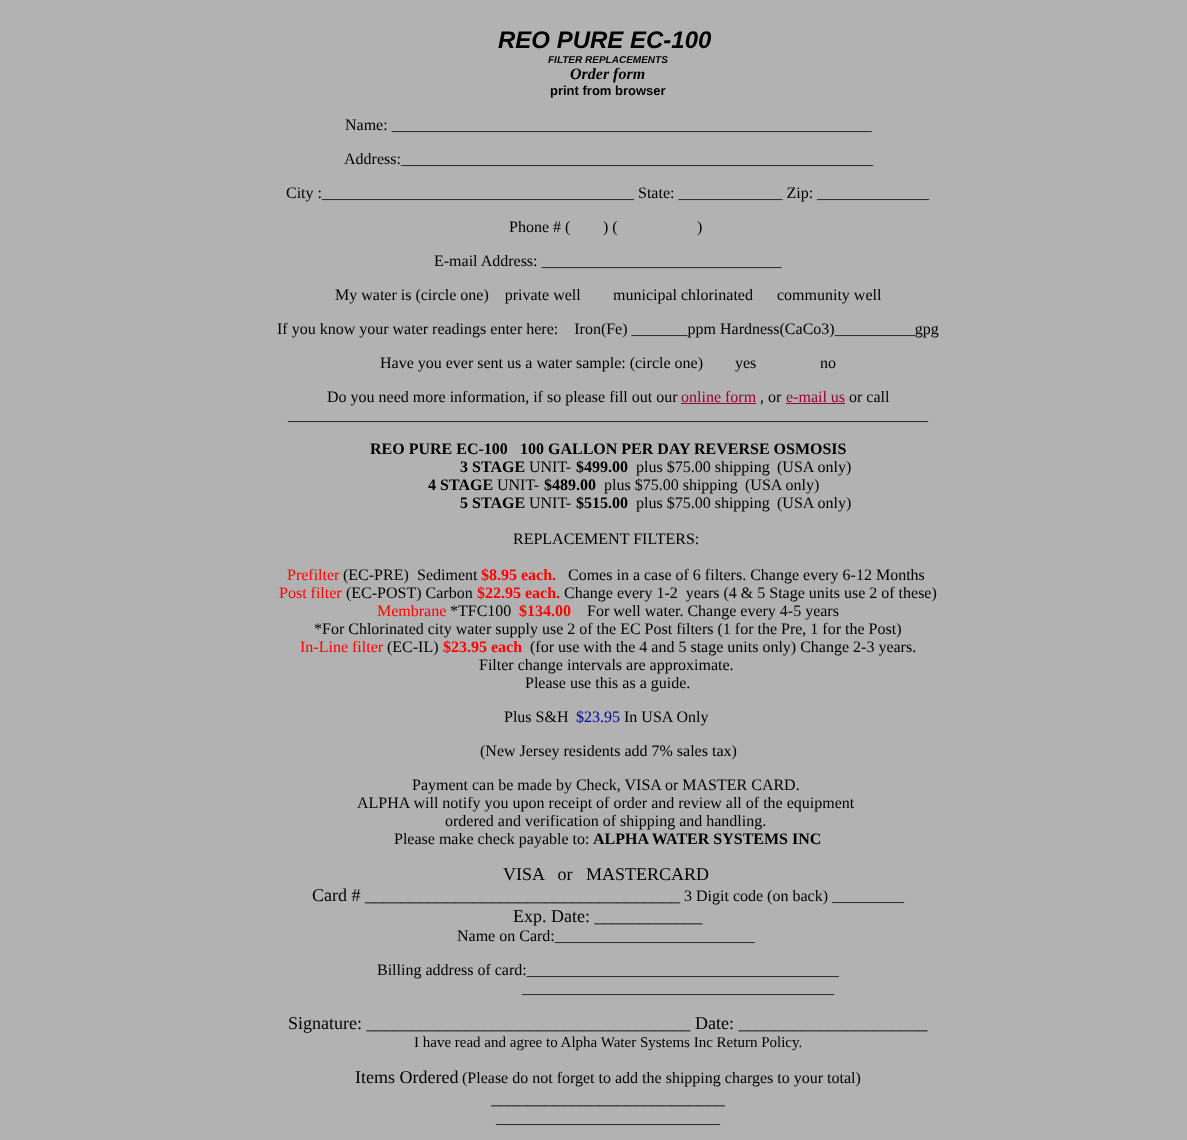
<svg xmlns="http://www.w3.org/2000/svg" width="1187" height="1140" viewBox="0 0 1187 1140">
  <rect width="100%" height="100%" fill="#b2b2b2"/>
  <text x="498" y="48" font-family="Liberation Sans" font-size="24" font-weight="bold" font-style="italic" fill="#000000">REO PURE EC-100</text>
  <text x="548" y="63" font-family="Liberation Sans" font-size="10" font-weight="bold" font-style="italic" fill="#000000">FILTER REPLACEMENTS</text>
  <text x="570" y="79" font-family="Liberation Serif" font-size="16" font-weight="bold" font-style="italic" fill="#000000">Order form</text>
  <text x="550" y="95" font-family="Liberation Sans" font-size="13" font-weight="bold" fill="#000000">print from browser</text>
  <text x="345" y="130" font-family="Liberation Serif" font-size="16" fill="#000000">Name: ____________________________________________________________</text>
  <text x="344" y="164" font-family="Liberation Serif" font-size="16" fill="#000000">Address:___________________________________________________________</text>
  <text x="286" y="198" font-family="Liberation Serif" font-size="16" fill="#000000">City :_______________________________________ State: _____________ Zip: ______________</text>
  <text x="509" y="232" font-family="Liberation Serif" font-size="16" fill="#000000">Phone # (</text>
  <text x="603" y="232" font-family="Liberation Serif" font-size="16" fill="#000000">) (</text>
  <text x="697" y="232" font-family="Liberation Serif" font-size="16" fill="#000000">)</text>
  <text x="434" y="266" font-family="Liberation Serif" font-size="16" fill="#000000">E-mail Address: ______________________________</text>
  <text x="335" y="300" font-family="Liberation Serif" font-size="16" fill="#000000" xml:space="preserve">My water is (circle one)    private well</text>
  <text x="613" y="300" font-family="Liberation Serif" font-size="16" fill="#000000" xml:space="preserve">municipal chlorinated      community well</text>
  <text x="277" y="334" font-family="Liberation Serif" font-size="16" fill="#000000" xml:space="preserve">If you know your water readings enter here:    Iron(Fe) _______ppm Hardness(CaCo3)__________gpg</text>
  <text x="380" y="368" font-family="Liberation Serif" font-size="16" fill="#000000">Have you ever sent us a water sample: (circle one)</text>
  <text x="735" y="368" font-family="Liberation Serif" font-size="16" fill="#000000">yes</text>
  <text x="820" y="368" font-family="Liberation Serif" font-size="16" fill="#000000">no</text>
  <text x="327" y="402" font-family="Liberation Serif" font-size="16" fill="#000000">Do you need more information, if so please fill out our</text>
  <text x="681" y="402" font-family="Liberation Serif" font-size="16" fill="#990033">online form</text>
  <text x="760" y="402" font-family="Liberation Serif" font-size="16" fill="#000000">, or</text>
  <rect x="681" y="403" width="75" height="1" fill="#990033"/>
  <rect x="786" y="403" width="59" height="1" fill="#990033"/>
  <text x="786" y="402" font-family="Liberation Serif" font-size="16" fill="#990033">e-mail us</text>
  <text x="849" y="402" font-family="Liberation Serif" font-size="16" fill="#000000">or call</text>
  <text x="288" y="420" font-family="Liberation Serif" font-size="16" fill="#000000">________________________________________________________________________________</text>
  <text x="370" y="454" font-family="Liberation Serif" font-size="16" font-weight="bold" fill="#000000">REO PURE EC-100</text>
  <text x="520" y="454" font-family="Liberation Serif" font-size="16" font-weight="bold" fill="#000000">100 GALLON PER DAY</text>
  <text x="694" y="454" font-family="Liberation Serif" font-size="16" font-weight="bold" fill="#000000">REVERSE OSMOSIS</text>
  <text x="460" y="472" font-family="Liberation Serif" font-size="16" font-weight="bold" fill="#000000">3 STAGE</text>
  <text x="529" y="472" font-family="Liberation Serif" font-size="16" fill="#000000">UNIT-</text>
  <text x="576" y="472" font-family="Liberation Serif" font-size="16" font-weight="bold" fill="#000000">$499.00</text>
  <text x="636" y="472" font-family="Liberation Serif" font-size="16" fill="#000000">plus $75.00 shipping</text>
  <text x="777" y="472" font-family="Liberation Serif" font-size="16" fill="#000000">(USA only)</text>
  <text x="428" y="490" font-family="Liberation Serif" font-size="16" font-weight="bold" fill="#000000">4 STAGE</text>
  <text x="497" y="490" font-family="Liberation Serif" font-size="16" fill="#000000">UNIT-</text>
  <text x="544" y="490" font-family="Liberation Serif" font-size="16" font-weight="bold" fill="#000000">$489.00</text>
  <text x="604" y="490" font-family="Liberation Serif" font-size="16" fill="#000000">plus $75.00 shipping</text>
  <text x="745" y="490" font-family="Liberation Serif" font-size="16" fill="#000000">(USA only)</text>
  <text x="460" y="508" font-family="Liberation Serif" font-size="16" font-weight="bold" fill="#000000">5 STAGE</text>
  <text x="529" y="508" font-family="Liberation Serif" font-size="16" fill="#000000">UNIT-</text>
  <text x="576" y="508" font-family="Liberation Serif" font-size="16" font-weight="bold" fill="#000000">$515.00</text>
  <text x="636" y="508" font-family="Liberation Serif" font-size="16" fill="#000000">plus $75.00 shipping</text>
  <text x="777" y="508" font-family="Liberation Serif" font-size="16" fill="#000000">(USA only)</text>
  <text x="513" y="544" font-family="Liberation Serif" font-size="16" fill="#000000">REPLACEMENT FILTERS:</text>
  <text x="287" y="580" font-family="Liberation Serif" font-size="16" fill="#ff0000">Prefilter</text>
  <text x="343" y="580" font-family="Liberation Serif" font-size="16" fill="#000000">(EC-PRE)</text>
  <text x="417" y="580" font-family="Liberation Serif" font-size="16" fill="#000000">Sediment</text>
  <text x="481" y="580" font-family="Liberation Serif" font-size="16" font-weight="bold" fill="#ff0000">$8.95 each.</text>
  <text x="568" y="580" font-family="Liberation Serif" font-size="16" fill="#000000">Comes in a case of 6 filters. Change every 6-12 Months</text>
  <text x="279" y="598" font-family="Liberation Serif" font-size="16" fill="#ff0000">Post filter</text>
  <text x="346" y="598" font-family="Liberation Serif" font-size="16" fill="#000000">(EC-POST) Carbon</text>
  <text x="477" y="598" font-family="Liberation Serif" font-size="16" font-weight="bold" fill="#ff0000">$22.95 each.</text>
  <text x="564" y="598" font-family="Liberation Serif" font-size="16" fill="#000000" xml:space="preserve">Change every 1-2  years (4 &amp; 5 Stage units use 2 of these)</text>
  <text x="377" y="616" font-family="Liberation Serif" font-size="16" fill="#ff0000">Membrane</text>
  <text x="450" y="616" font-family="Liberation Serif" font-size="16" fill="#000000">*TFC100</text>
  <text x="519" y="616" font-family="Liberation Serif" font-size="16" font-weight="bold" fill="#ff0000">$134.00</text>
  <text x="587" y="616" font-family="Liberation Serif" font-size="16" fill="#000000">For well water. Change every 4-5 years</text>
  <text x="314" y="634" font-family="Liberation Serif" font-size="16" fill="#000000">*For Chlorinated city water supply use 2 of the EC Post filters (1 for the Pre, 1 for the Post)</text>
  <text x="300" y="652" font-family="Liberation Serif" font-size="16" fill="#ff0000">In-Line filter</text>
  <text x="387" y="652" font-family="Liberation Serif" font-size="16" fill="#000000">(EC-IL)</text>
  <text x="443" y="652" font-family="Liberation Serif" font-size="16" font-weight="bold" fill="#ff0000">$23.95 each</text>
  <text x="530" y="652" font-family="Liberation Serif" font-size="16" fill="#000000">(for use with the 4 and 5 stage units only) Change 2-3 years.</text>
  <text x="479" y="670" font-family="Liberation Serif" font-size="16" fill="#000000">Filter change intervals are approximate.</text>
  <text x="525" y="688" font-family="Liberation Serif" font-size="16" fill="#000000">Please use this as a guide.</text>
  <text x="504" y="722" font-family="Liberation Serif" font-size="16" fill="#000000">Plus S&amp;H</text>
  <text x="576" y="722" font-family="Liberation Serif" font-size="16" fill="#000099">$23.95</text>
  <text x="624" y="722" font-family="Liberation Serif" font-size="16" fill="#000000">In USA Only</text>
  <text x="480" y="756" font-family="Liberation Serif" font-size="16" fill="#000000">(New Jersey residents add 7% sales tax)</text>
  <text x="412" y="790" font-family="Liberation Serif" font-size="16" fill="#000000">Payment can be made by Check, VISA or MASTER CARD.</text>
  <text x="357" y="808" font-family="Liberation Serif" font-size="16" fill="#000000">ALPHA will notify you upon receipt of order and review all of the equipment</text>
  <text x="445" y="826" font-family="Liberation Serif" font-size="16" fill="#000000">ordered and verification of shipping and handling.</text>
  <text x="394" y="844" font-family="Liberation Serif" font-size="16" fill="#000000">Please make check payable to:</text>
  <text x="593" y="844" font-family="Liberation Serif" font-size="16" font-weight="bold" fill="#000000">ALPHA WATER SYSTEMS INC</text>
  <text x="503" y="880" font-family="Liberation Serif" font-size="18" fill="#000000" xml:space="preserve">VISA   or   MASTERCARD</text>
  <text x="312" y="901" font-family="Liberation Serif" font-size="18" fill="#000000">Card # ___________________________________</text>
  <text x="684" y="901" font-family="Liberation Serif" font-size="16" fill="#000000">3 Digit code (on back) _________</text>
  <text x="513" y="922" font-family="Liberation Serif" font-size="18" fill="#000000">Exp. Date: ____________</text>
  <text x="457" y="941" font-family="Liberation Serif" font-size="16" fill="#000000">Name on Card:_________________________</text>
  <text x="377" y="975" font-family="Liberation Serif" font-size="16" fill="#000000">Billing address of card:_______________________________________</text>
  <text x="522" y="993" font-family="Liberation Serif" font-size="16" fill="#000000">_______________________________________</text>
  <text x="288" y="1029" font-family="Liberation Serif" font-size="18" fill="#000000">Signature: ____________________________________ Date: _____________________</text>
  <text x="414" y="1047" font-family="Liberation Serif" font-size="15" fill="#000000">I have read and agree to Alpha Water Systems Inc Return Policy.</text>
  <text x="355" y="1083" font-family="Liberation Serif" font-size="18" fill="#000000">Items Ordered</text>
  <text x="462" y="1083" font-family="Liberation Serif" font-size="16" fill="#000000">(Please do not forget to add the shipping charges to your total)</text>
  <text x="491" y="1104" font-family="Liberation Serif" font-size="18" fill="#000000">__________________________</text>
  <text x="496" y="1123" font-family="Liberation Serif" font-size="16" fill="#000000">____________________________</text>
</svg>
